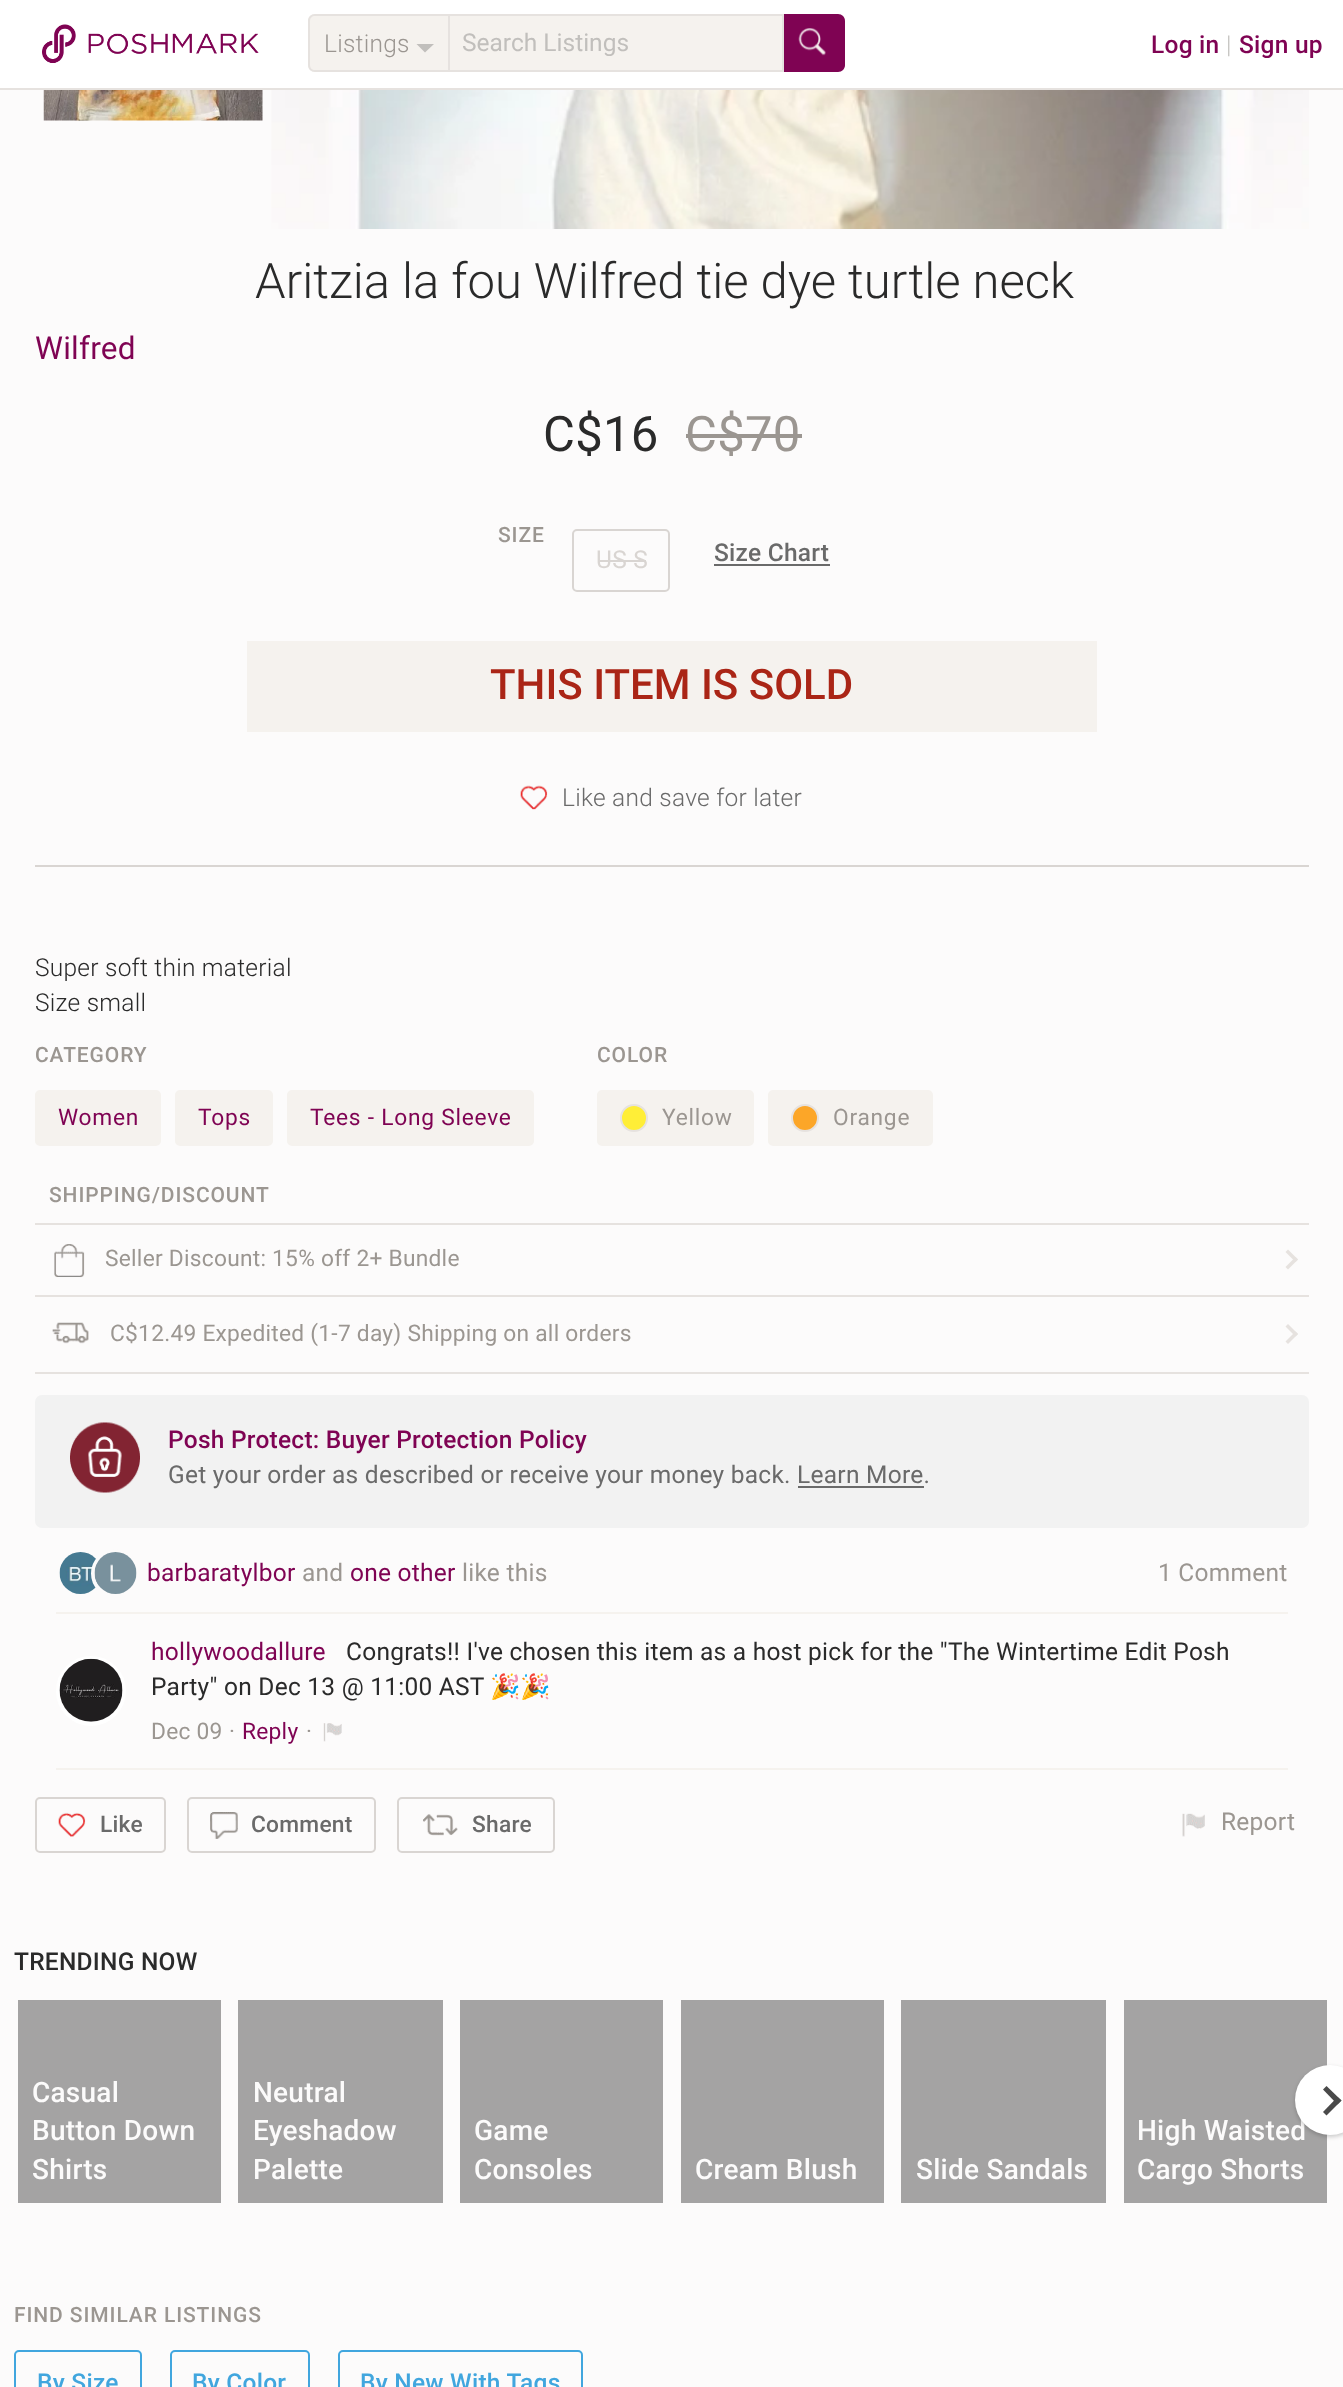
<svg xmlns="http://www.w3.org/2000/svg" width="1343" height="2387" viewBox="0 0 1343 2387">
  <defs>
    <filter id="blur1" x="-50%" y="-200%" width="200%" height="500%"><feGaussianBlur stdDeviation="2"/></filter>
  </defs>
  <rect width="100%" height="100%" fill="#fcfbfb"/>
  <rect x="0" y="0" width="1343" height="88" fill="#ffffff"/>
  <rect x="0" y="88" width="1343" height="2" fill="#e6e2df"/>
  <image x="42" y="24" width="217" height="39" href="img1.png"/>
  <path d="M315 14H448V72H315C311 72 308 69 308 65V21C308 17 311 14 315 14Z" fill="#f5f2ee"/>
  <path d="M315 14H448V72H315C311 72 308 69 308 65V21C308 17 311 14 315 14ZM315 16H448V70H315C312 70 310 68 310 65V21C310 18 312 16 315 16Z" fill="#e6e2df" fill-rule="evenodd"/>
  <text x="324" y="52" font-family="Roboto" font-size="24.5" font-weight="300" letter-spacing="0.25" fill="#9b9691">Listings</text>
  <path d="M416.5 44H434L425 52.5Z" fill="#c1bfbc"/>
  <path d="M781 14H838C842 14 845 17 845 21V65C845 69 842 72 838 72H781Z" fill="#7f0353"/>
  <rect x="449" y="15" width="334" height="56" fill="#f5f2ee" stroke="#e6e2df" stroke-width="2"/>
  <text x="462" y="51" font-family="Roboto" font-size="24.5" fill="#c1bfbc">Search Listings</text>
  <image x="798" y="28" width="28" height="28" href="img2.png"/>
  <text x="1151" y="53" font-family="Roboto" font-size="24.5" font-weight="500" letter-spacing="0.25" fill="#7f0353">Log in</text>
  <text x="1226" y="53" font-family="Roboto" font-size="24.5" font-weight="300" letter-spacing="0.25" fill="#c1bfbc">|</text>
  <text x="1239" y="53" font-family="Roboto" font-size="24.5" font-weight="500" letter-spacing="0.25" fill="#7f0353">Sign up</text>
  <image x="43" y="90" width="220" height="31" href="img3.png"/>
  <image x="271" y="90" width="1038" height="139" href="img4.png"/>
  <text x="255" y="298" font-family="Roboto" font-size="49" font-weight="300" fill="#2a2a2a">Aritzia la fou Wilfred tie dye turtle neck</text>
  <text x="35" y="359" font-family="Roboto" font-size="31.5" letter-spacing="0.25" fill="#7f0353">Wilfred</text>
  <text x="543" y="451" font-family="Roboto" font-size="49" letter-spacing="0.25" fill="#2a2a2a">C$16</text>
  <text x="685" y="451" font-family="Roboto" font-size="49" letter-spacing="0.25" fill="#9b9691">C$70</text>
  <rect x="686" y="434" width="116" height="4" fill="#9b9691"/>
  <text x="498" y="542" font-family="Roboto" font-size="21" font-weight="500" letter-spacing="0.9" fill="#9b9691">SIZE</text>
  <rect x="573" y="530" width="96" height="61" rx="4" fill="none" stroke="#d9d5d2" stroke-width="2"/>
  <text x="596" y="568" font-family="Roboto" font-size="24.5" letter-spacing="0.25" fill="#d9d5d2">US S</text>
  <rect x="599" y="560" width="47" height="2" fill="#d9d5d2"/>
  <text x="714" y="561" font-family="Roboto" font-size="24.5" font-weight="500" letter-spacing="0.25" fill="#6a6a6a">Size Chart</text>
  <rect x="714" y="564" width="116" height="2" fill="#6a6a6a"/>
  <rect x="247" y="641" width="850" height="91" fill="#f5f2ee"/>
  <text x="490" y="699" font-family="Roboto" font-size="42" font-weight="500" fill="#aa2516">THIS ITEM IS SOLD</text>
  <image x="520" y="785" width="28" height="25" href="img5.png"/>
  <text x="562" y="806" font-family="Roboto" font-size="24.5" font-weight="300" letter-spacing="0.25" fill="#6a6a6a">Like and save for later</text>
  <rect x="35" y="865" width="1274" height="2" fill="#d9d5d2"/>
  <text x="35" y="976" font-family="Roboto" font-size="24.5" font-weight="300" letter-spacing="0.25" fill="#2a2a2a">Super soft thin material</text>
  <text x="35" y="1011" font-family="Roboto" font-size="24.5" font-weight="300" letter-spacing="0.25" fill="#2a2a2a">Size small</text>
  <text x="35" y="1062" font-family="Roboto" font-size="21" font-weight="500" letter-spacing="0.9" fill="#9b9691">CATEGORY</text>
  <rect x="36" y="1091" width="124" height="54" rx="4" fill="#f5f2ee" stroke="#f5f2ee" stroke-width="2"/>
  <text x="58" y="1125" font-family="Roboto" font-size="22.75" letter-spacing="0.75" fill="#7f0353">Women</text>
  <rect x="176" y="1091" width="96" height="54" rx="4" fill="#f5f2ee" stroke="#f5f2ee" stroke-width="2"/>
  <text x="198" y="1125" font-family="Roboto" font-size="22.75" letter-spacing="0.75" fill="#7f0353">Tops</text>
  <rect x="288" y="1091" width="245" height="54" rx="4" fill="#f5f2ee" stroke="#f5f2ee" stroke-width="2"/>
  <text x="310" y="1125" font-family="Roboto" font-size="22.75" letter-spacing="0.75" fill="#7f0353">Tees - Long Sleeve</text>
  <text x="597" y="1062" font-family="Roboto" font-size="21" font-weight="500" letter-spacing="0.9" fill="#9b9691">COLOR</text>
  <rect x="598" y="1091" width="155" height="54" rx="4" fill="#f5f2ee" stroke="#f5f2ee" stroke-width="2"/>
  <circle cx="634" cy="1118" r="13" fill="#ffee37" stroke="#e6e2df" stroke-width="2"/>
  <text x="662" y="1125" font-family="Roboto" font-size="22.75" letter-spacing="0.75" fill="#9b9691">Yellow</text>
  <rect x="769" y="1091" width="163" height="54" rx="4" fill="#f5f2ee" stroke="#f5f2ee" stroke-width="2"/>
  <circle cx="805" cy="1118" r="13" fill="#fca628" stroke="#e6e2df" stroke-width="2"/>
  <text x="833" y="1125" font-family="Roboto" font-size="22.75" letter-spacing="0.75" fill="#9b9691">Orange</text>
  <rect x="35" y="1223" width="1274" height="2" fill="#e6e2df"/>
  <text x="49" y="1202" font-family="Roboto" font-size="21" font-weight="500" letter-spacing="0.9" fill="#9b9691">SHIPPING/DISCOUNT</text>
  <rect x="35" y="1295" width="1274" height="2" fill="#e6e2df"/>
  <image x="54" y="1244" width="31" height="34" href="img6.png"/>
  <text x="105" y="1266" font-family="Roboto" font-size="22.75" letter-spacing="0.25" fill="#9b9691">Seller Discount: 15% off 2+ Bundle</text>
  <path d="M1285.5 1252L1288 1249.5L1298 1259.5L1295.5 1262Z" fill="#e6e2df"/>
  <path d="M1285.5 1267L1295.5 1257L1298 1259.5L1288 1269.5Z" fill="#e6e2df"/>
  <rect x="35" y="1372" width="1274" height="2" fill="#e6e2df"/>
  <image x="52" y="1322" width="37" height="22" href="img7.png"/>
  <text x="110" y="1341" font-family="Roboto" font-size="22.75" letter-spacing="0.25" fill="#9b9691">C$12.49 Expedited (1-7 day) Shipping on all orders</text>
  <path d="M1285.5 1326.5L1288 1324L1298 1334L1295.5 1336.5Z" fill="#e6e2df"/>
  <path d="M1285.5 1341.5L1295.5 1331.5L1298 1334L1288 1344Z" fill="#e6e2df"/>
  <rect x="35" y="1395" width="1274" height="133" rx="7" fill="#f2f2f2"/>
  <image x="70" y="1422" width="70" height="71" href="img8.png"/>
  <text x="168" y="1448" font-family="Roboto" font-size="24.5" font-weight="500" letter-spacing="0.25" fill="#7f0353">Posh Protect: Buyer Protection Policy</text>
  <text x="168" y="1483" font-family="Roboto" font-size="24.5" letter-spacing="0.25" fill="#6a6a6a">Get your order as described or receive your money back. Learn More.</text>
  <rect x="798" y="1486" width="126" height="2" fill="#6a6a6a"/>
  <rect x="56" y="1612" width="1232" height="2" fill="#f5f2ee"/>
  <image x="59" y="1552" width="40" height="42" href="img9.png"/>
  <circle cx="115.5" cy="1573.5" r="22.5" fill="none" stroke="#fcfbfb" stroke-width="4"/>
  <image x="94" y="1552" width="43" height="42" href="img10.png"/>
  <text x="147" y="1581" font-family="Roboto" font-size="24.5" letter-spacing="0.25" fill="#7f0353">barbaratylbor</text>
  <text x="302" y="1581" font-family="Roboto" font-size="24.5" letter-spacing="0.25" fill="#9b9691">and</text>
  <text x="350" y="1581" font-family="Roboto" font-size="24.5" letter-spacing="0.25" fill="#7f0353">one other</text>
  <text x="462" y="1581" font-family="Roboto" font-size="24.5" letter-spacing="0.25" fill="#9b9691">like this</text>
  <text x="1158" y="1581" font-family="Roboto" font-size="24.5" letter-spacing="0.25" fill="#9b9691">1 Comment</text>
  <rect x="56" y="1768" width="1232" height="2" fill="#f5f2ee"/>
  <circle cx="91" cy="1691" r="33" fill="none" stroke="#ffffff" stroke-width="4"/>
  <image x="59" y="1658" width="64" height="64" href="img11.png"/>
  <text x="151" y="1660" font-family="Roboto" font-size="24.5" letter-spacing="0.25" fill="#7f0353">hollywoodallure</text>
  <text x="346" y="1660" font-family="Roboto" font-size="24.5" letter-spacing="0.25" fill="#2a2a2a">Congrats!! I've chosen this item as a host pick for the "The Wintertime Edit Posh</text>
  <text x="151" y="1695" font-family="Roboto" font-size="24.5" letter-spacing="0.25" fill="#2a2a2a">Party" on Dec 13 @ 11:00 AST</text>
  <text x="490" y="1695" font-family="Noto Color Emoji" font-size="24.5" letter-spacing="0.25" fill="#2a2a2a">🎉🎉</text>
  <text x="151" y="1739" font-family="Roboto" font-size="22.75" letter-spacing="0.25" fill="#9b9691">Dec 09</text>
  <text x="229" y="1739" font-family="Roboto" font-size="22.75" letter-spacing="0.25" fill="#9b9691">·</text>
  <text x="242" y="1739" font-family="Roboto" font-size="22.75" letter-spacing="0.25" fill="#7f0353">Reply</text>
  <text x="306" y="1739" font-family="Roboto" font-size="22.75" letter-spacing="0.25" fill="#9b9691">·</text>
  <image x="323" y="1723" width="19" height="19" href="img12.png"/>
  <rect x="36" y="1798" width="129" height="54" rx="4" fill="none" stroke="#d9d5d2" stroke-width="2"/>
  <image x="58" y="1812" width="28" height="25" href="img13.png"/>
  <text x="100" y="1832" font-family="Roboto" font-size="22.75" font-weight="500" letter-spacing="0.25" fill="#6a6a6a">Like</text>
  <rect x="188" y="1798" width="187" height="54" rx="4" fill="none" stroke="#d9d5d2" stroke-width="2"/>
  <image x="210" y="1812" width="28" height="27" href="img14.png"/>
  <text x="251" y="1832" font-family="Roboto" font-size="22.75" font-weight="500" letter-spacing="0.25" fill="#6a6a6a">Comment</text>
  <rect x="398" y="1798" width="156" height="54" rx="4" fill="none" stroke="#d9d5d2" stroke-width="2"/>
  <image x="423" y="1814" width="35" height="22" href="img15.png"/>
  <text x="472" y="1832" font-family="Roboto" font-size="22.75" font-weight="500" letter-spacing="0.25" fill="#6a6a6a">Share</text>
  <image x="1182" y="1813" width="23" height="24" href="img16.png"/>
  <text x="1221" y="1830" font-family="Roboto" font-size="24.5" letter-spacing="0.25" fill="#9b9691">Report</text>
  <text x="14" y="1970" font-family="Roboto" font-size="24.5" font-weight="500" letter-spacing="0.25" fill="#2a2a2a">TRENDING NOW</text>
  <rect x="18" y="2000" width="203" height="203" fill="#a4a3a3"/>
  <text x="32" y="2102" font-family="Roboto" font-size="28" font-weight="500" letter-spacing="0.25" fill="#fcfbfb">Casual</text>
  <text x="32" y="2140" font-family="Roboto" font-size="28" font-weight="500" letter-spacing="0.25" fill="#fcfbfb">Button Down</text>
  <text x="32" y="2179" font-family="Roboto" font-size="28" font-weight="500" letter-spacing="0.25" fill="#fcfbfb">Shirts</text>
  <rect x="238" y="2000" width="205" height="203" fill="#a4a3a3"/>
  <text x="253" y="2102" font-family="Roboto" font-size="28" font-weight="500" letter-spacing="0.25" fill="#fcfbfb">Neutral</text>
  <text x="253" y="2140" font-family="Roboto" font-size="28" font-weight="500" letter-spacing="0.25" fill="#fcfbfb">Eyeshadow</text>
  <text x="253" y="2179" font-family="Roboto" font-size="28" font-weight="500" letter-spacing="0.25" fill="#fcfbfb">Palette</text>
  <rect x="460" y="2000" width="203" height="203" fill="#a4a3a3"/>
  <text x="474" y="2140" font-family="Roboto" font-size="28" font-weight="500" letter-spacing="0.25" fill="#fcfbfb">Game</text>
  <text x="474" y="2179" font-family="Roboto" font-size="28" font-weight="500" letter-spacing="0.25" fill="#fcfbfb">Consoles</text>
  <rect x="681" y="2000" width="203" height="203" fill="#a4a3a3"/>
  <text x="695" y="2179" font-family="Roboto" font-size="28" font-weight="500" letter-spacing="0.25" fill="#fcfbfb">Cream Blush</text>
  <rect x="901" y="2000" width="205" height="203" fill="#a4a3a3"/>
  <text x="916" y="2179" font-family="Roboto" font-size="28" font-weight="500" letter-spacing="0.25" fill="#fcfbfb">Slide Sandals</text>
  <rect x="1124" y="2000" width="203" height="203" fill="#a4a3a3"/>
  <text x="1137" y="2140" font-family="Roboto" font-size="28" font-weight="500" letter-spacing="0.25" fill="#fcfbfb">High Waisted</text>
  <text x="1137" y="2179" font-family="Roboto" font-size="28" font-weight="500" letter-spacing="0.25" fill="#fcfbfb">Cargo Shorts</text>
  <rect x="1295" y="2067" width="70" height="70" rx="35" fill="#000000" fill-opacity="0.2" filter="url(#blur1)"/>
  <circle cx="1330" cy="2100" r="35" fill="#ffffff"/>
  <path d="M1323 2089.5L1326.5 2086L1341.5 2100.5L1337.5 2104.5Z" fill="#4a4a4a"/>
  <path d="M1323 2112L1337.5 2097L1341.5 2100.5L1326.5 2115.5Z" fill="#4a4a4a"/>
  <text x="14" y="2322" font-family="Roboto" font-size="21" font-weight="500" letter-spacing="0.9" fill="#9b9691">FIND SIMILAR LISTINGS</text>
  <rect x="15" y="2351" width="126" height="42" rx="4" fill="none" stroke="#41a6de" stroke-width="2"/>
  <text x="37" y="2391" font-family="Roboto" font-size="24.5" font-weight="500" letter-spacing="0.25" fill="#41a6de">By Size</text>
  <rect x="171" y="2351" width="138" height="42" rx="4" fill="none" stroke="#41a6de" stroke-width="2"/>
  <text x="192" y="2391" font-family="Roboto" font-size="24.5" font-weight="500" letter-spacing="0.25" fill="#41a6de">By Color</text>
  <rect x="339" y="2351" width="243" height="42" rx="4" fill="none" stroke="#41a6de" stroke-width="2"/>
  <text x="360" y="2391" font-family="Roboto" font-size="24.5" font-weight="500" letter-spacing="0.25" fill="#41a6de">By New With Tags</text>
</svg>
